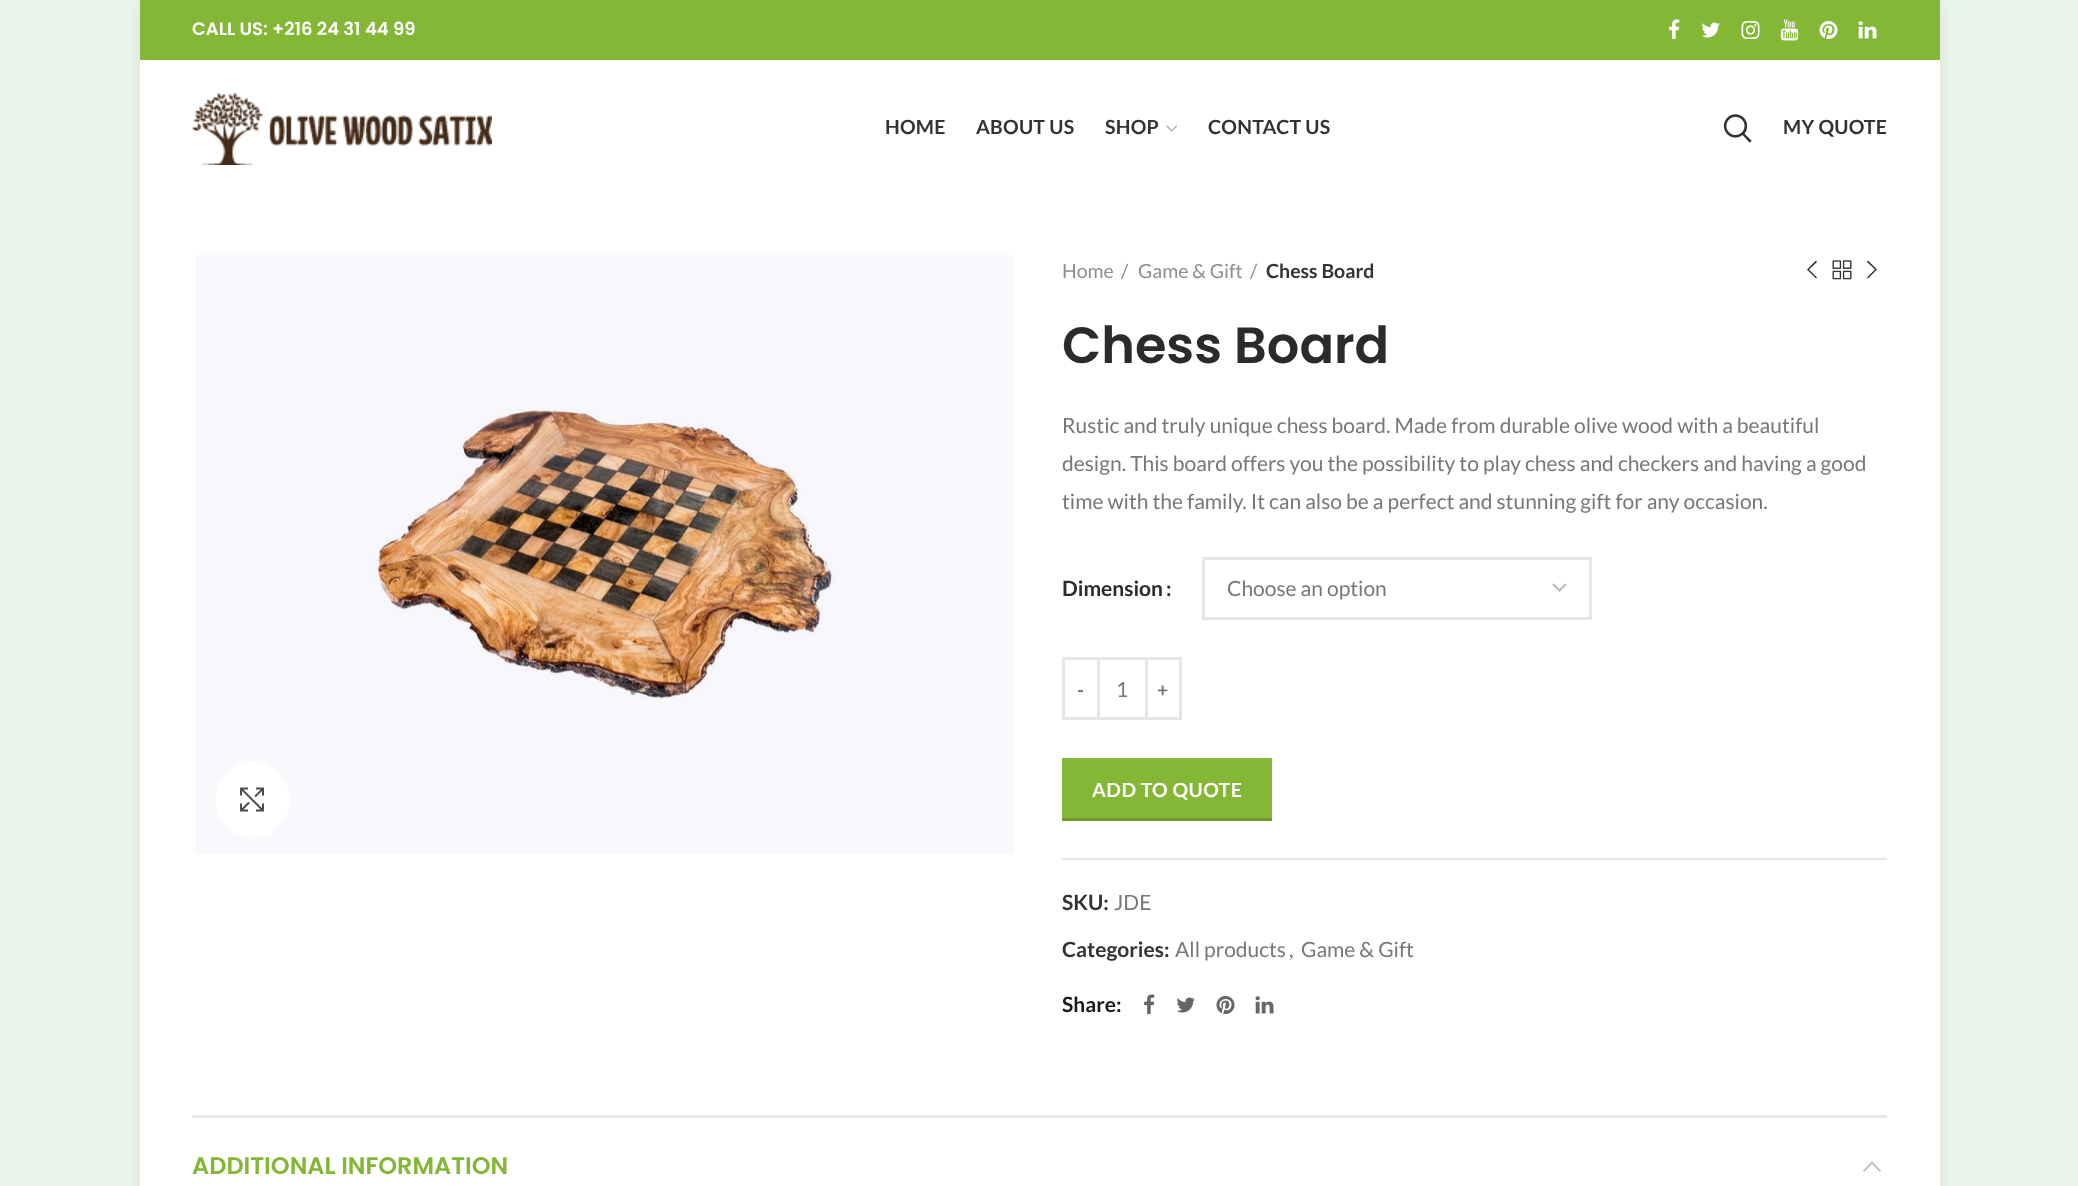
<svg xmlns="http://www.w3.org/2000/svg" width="2078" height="1186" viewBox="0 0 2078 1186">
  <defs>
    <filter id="blur1" x="-50%" y="-200%" width="200%" height="500%"><feGaussianBlur stdDeviation="7"/></filter>
  </defs>
  <rect width="100%" height="100%" fill="#ebf4eb"/>
  <rect x="140" y="2" width="1800" height="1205" fill="#000000" fill-opacity="0.08" filter="url(#blur1)"/>
  <rect x="140" y="60" width="1800" height="1126" fill="#ffffff"/>
  <rect x="140" y="0" width="1800" height="60" fill="#83b735"/>
  <text x="192" y="35" font-family="Poppins" font-size="18" font-weight="600" fill="#ffffff">CALL US: +216 24 31 44 99</text>
  <image x="1669" y="19" width="11" height="20" href="img1.png"/>
  <image x="1701" y="22" width="19" height="16" href="img2.png"/>
  <image x="1741" y="21" width="19" height="18" href="img3.png"/>
  <image x="1780" y="19" width="19" height="22" href="img4.png"/>
  <image x="1819" y="21" width="19" height="18" href="img5.png"/>
  <image x="1858" y="21" width="19" height="18" href="img6.png"/>
  <image x="192" y="92" width="300" height="73" href="img7.png"/>
  <text x="885" y="134" font-family="Lato" font-size="19.5" font-weight="bold" letter-spacing="0.25" fill="#333333">HOME</text>
  <text x="976" y="134" font-family="Lato" font-size="19.5" font-weight="bold" letter-spacing="0.25" fill="#333333">ABOUT US</text>
  <text x="1105" y="134" font-family="Lato" font-size="19.5" font-weight="bold" letter-spacing="0.25" fill="#333333">SHOP</text>
  <image x="1166" y="125" width="12" height="7" href="img8.png"/>
  <text x="1208" y="134" font-family="Lato" font-size="19.5" font-weight="bold" letter-spacing="0.25" fill="#333333">CONTACT US</text>
  <image x="1723" y="114" width="29" height="29" href="img9.png"/>
  <text x="1783" y="134" font-family="Lato" font-size="19.5" font-weight="bold" letter-spacing="0.25" fill="#333333">MY QUOTE</text>
  <image x="195" y="255" width="819" height="599" href="img10.png"/>
  <circle cx="252.5" cy="799.5" r="37.5" fill="#ffffff" fill-opacity="0.9"/>
  <image x="240" y="787" width="24" height="25" href="img11.png"/>
  <text x="1062" y="278" font-family="Lato" font-size="19.5" fill="#8e8e8e">Home</text>
  <text x="1121" y="278" font-family="Lato" font-size="19.5" fill="#8e8e8e">/</text>
  <text x="1138" y="278" font-family="Lato" font-size="19.5" fill="#8e8e8e">Game &amp; Gift</text>
  <text x="1250" y="278" font-family="Lato" font-size="19.5" fill="#8e8e8e">/</text>
  <text x="1266" y="278" font-family="Lato" font-size="19.5" font-weight="bold" fill="#333333">Chess Board</text>
  <path d="M1817 262L1809 269.5L1817 277.5L1816 278.5L1807 269.5L1816 260.5Z" fill="#333333"/>
  <image x="1832" y="260" width="20" height="20" href="img12.png"/>
  <path d="M1868 260.5L1877 269.5L1868 278.5L1867 277.5L1875 269.5L1867 262Z" fill="#333333"/>
  <text x="1062" y="363" font-family="Poppins" font-size="51" font-weight="600" fill="#2d2a2a">Chess Board</text>
  <text x="1062" y="433" font-family="Lato" font-size="21" fill="#777777">Rustic and truly unique chess board. Made from durable olive wood with a beautiful</text>
  <text x="1062" y="471" font-family="Lato" font-size="21" fill="#777777">design. This board offers you the possibility to play chess and checkers and having a good</text>
  <text x="1062" y="509" font-family="Lato" font-size="21" fill="#777777">time with the family. It can also be a perfect and stunning gift for any occasion.</text>
  <text x="1062" y="596" font-family="Lato" font-size="21" font-weight="bold" fill="#2d2a2a">Dimension</text>
  <text x="1166" y="596" font-family="Lato" font-size="21" font-weight="bold" fill="#2d2a2a">:</text>
  <path d="M1553 584L1559.5 590.5L1566 584" fill="none" stroke="#bbbbbb" stroke-width="2.2"/>
  <rect x="1203.5" y="558.5" width="387" height="60" fill="none" stroke="#e6e6e6" stroke-width="3"/>
  <text x="1227" y="596" font-family="Lato" font-size="21" fill="#777777">Choose an option</text>
  <rect x="1063.5" y="658.5" width="35" height="60" fill="none" stroke="#e6e6e6" stroke-width="3"/>
  <text x="1077" y="697" font-family="Lato" font-size="19.5" font-weight="bold" letter-spacing="0.5" fill="#777777">-</text>
  <rect x="1100" y="657" width="45" height="3" fill="#e6e6e6"/>
  <rect x="1100" y="717" width="45" height="3" fill="#e6e6e6"/>
  <text x="1116" y="697" font-family="Lato" font-size="21" fill="#777777">1</text>
  <rect x="1146.5" y="658.5" width="34" height="60" fill="none" stroke="#e6e6e6" stroke-width="3"/>
  <text x="1157" y="697" font-family="Lato" font-size="19.5" font-weight="bold" letter-spacing="0.5" fill="#777777">+</text>
  <rect x="1062" y="758" width="210" height="60" fill="#83b735"/>
  <rect x="1062" y="818" width="210" height="3" fill="#6f9c2d"/>
  <text x="1092" y="797" font-family="Lato" font-size="19.5" font-weight="bold" letter-spacing="0.5" fill="#ffffff">ADD TO QUOTE</text>
  <rect x="1062" y="858" width="825" height="2" fill="#e6e6e6"/>
  <text x="1062" y="910" font-family="Lato" font-size="21" font-weight="bold" fill="#333333">SKU:</text>
  <text x="1114" y="910" font-family="Lato" font-size="21" fill="#777777">JDE</text>
  <text x="1062" y="957" font-family="Lato" font-size="21" font-weight="bold" fill="#333333">Categories:</text>
  <text x="1175" y="957" font-family="Lato" font-size="21" fill="#777777">All products</text>
  <text x="1289" y="957" font-family="Lato" font-size="21" fill="#777777">,</text>
  <text x="1301" y="957" font-family="Lato" font-size="21" fill="#777777">Game &amp; Gift</text>
  <text x="1062" y="1012" font-family="Lato" font-size="21" font-weight="bold" fill="#1b1919">Share:</text>
  <image x="1144" y="994" width="11" height="20" href="img13.png"/>
  <image x="1176" y="997" width="19" height="16" href="img14.png"/>
  <image x="1216" y="996" width="19" height="18" href="img15.png"/>
  <image x="1255" y="996" width="19" height="18" href="img16.png"/>
  <rect x="192" y="1115" width="1695" height="3" fill="#e8e8e8"/>
  <text x="192" y="1174" font-family="Poppins" font-size="24" font-weight="600" fill="#83b735">ADDITIONAL INFORMATION</text>
  <path d="M1864 1172L1863 1170.5L1872 1161.5L1881 1170.5L1880 1172L1872 1164Z" fill="#bbbbbb"/>
</svg>
